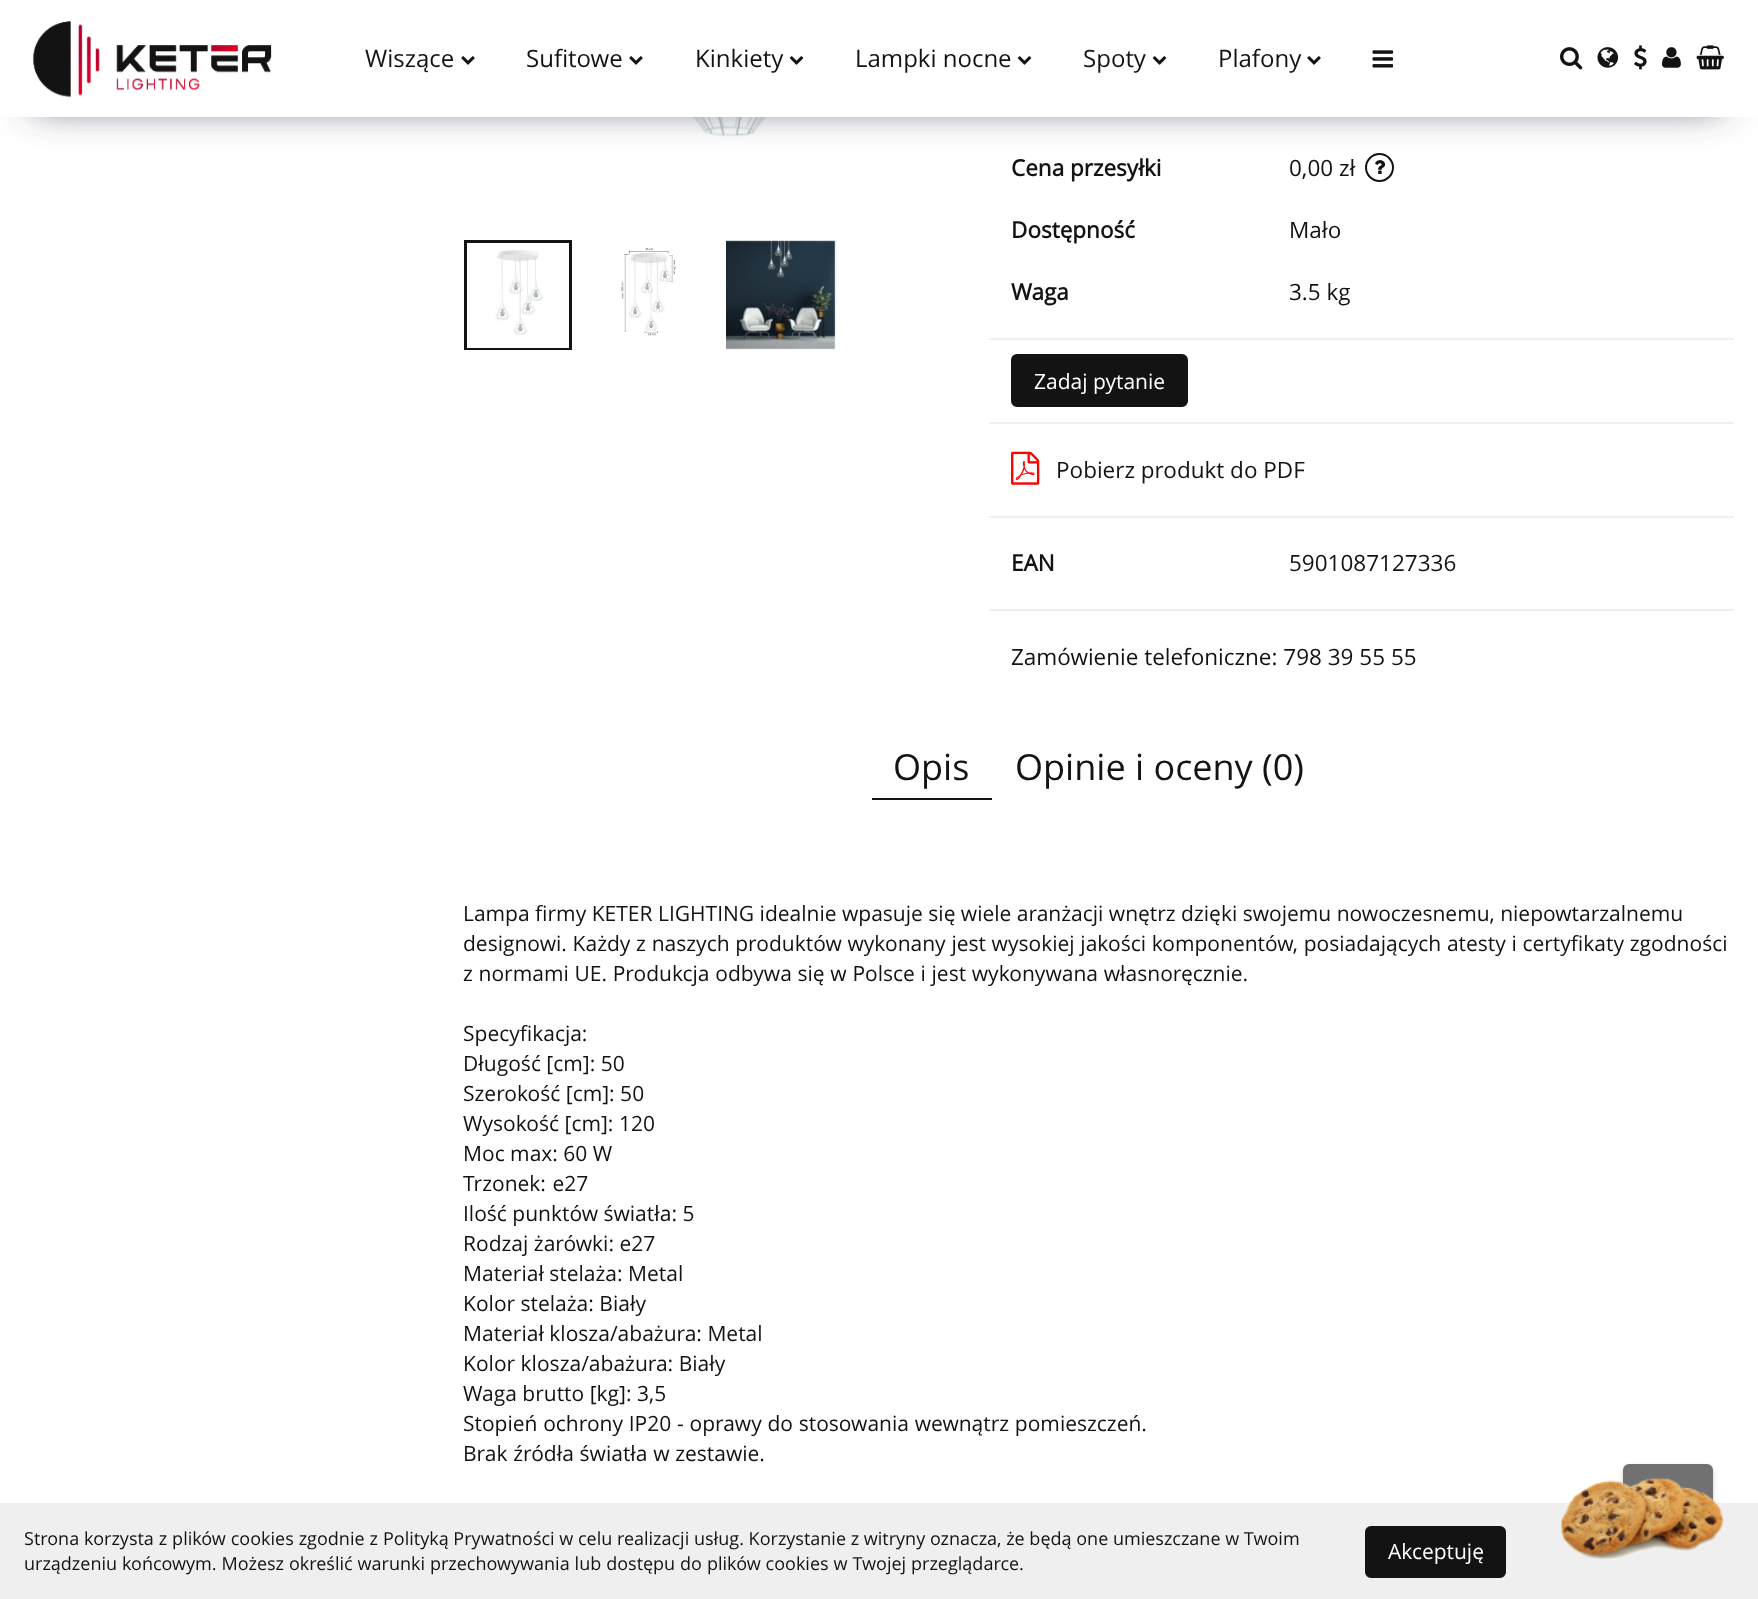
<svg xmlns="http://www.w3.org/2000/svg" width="1758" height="1599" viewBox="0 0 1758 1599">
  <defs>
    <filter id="blur1" x="-50%" y="-200%" width="200%" height="500%"><feGaussianBlur stdDeviation="19"/></filter>
    <clipPath id="clip1"><rect x="464" y="240" width="502" height="110"/></clipPath>
    <clipPath id="clip2"><path d="M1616 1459H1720V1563H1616ZM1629 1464H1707C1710.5 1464 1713 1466.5 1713 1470V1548C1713 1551.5 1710.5 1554 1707 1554H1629C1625.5 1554 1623 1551.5 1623 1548V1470C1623 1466.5 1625.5 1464 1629 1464Z" clip-rule="evenodd"/></clipPath>
    <filter id="blur2" x="-50%" y="-200%" width="200%" height="500%"><feGaussianBlur stdDeviation="2"/></filter>
  </defs>
  <rect width="100%" height="100%" fill="#ffffff"/>
  <image x="587" y="117" width="221" height="20" href="img10.png"/>
  <circle cx="1379.5" cy="167.5" r="13.5" fill="none" stroke="#131313" stroke-width="2"/>
  <image x="1375" y="160" width="11" height="14" href="img14.png"/>
  <rect x="33" y="57" width="1689" height="48" fill="#42445a" filter="url(#blur1)"/>
  <rect x="0" y="15" width="1758" height="102" fill="#ffffff"/>
  <image x="32" y="21" width="240" height="77" href="img1.png"/>
  <text x="365" y="67" font-family="Open Sans" font-size="24" fill="#131313">Wiszące</text>
  <image x="461" y="56" width="14" height="9" href="img2.png"/>
  <text x="526" y="67" font-family="Open Sans" font-size="24" fill="#131313">Sufitowe</text>
  <image x="629" y="56" width="14" height="9" href="img2.png"/>
  <text x="695" y="67" font-family="Open Sans" font-size="24" fill="#131313">Kinkiety</text>
  <image x="789" y="56" width="15" height="9" href="img3.png"/>
  <text x="855" y="67" font-family="Open Sans" font-size="24" fill="#131313">Lampki nocne</text>
  <image x="1017" y="56" width="15" height="9" href="img3.png"/>
  <text x="1083" y="67" font-family="Open Sans" font-size="24" fill="#131313">Spoty</text>
  <image x="1152" y="56" width="15" height="9" href="img3.png"/>
  <text x="1218" y="67" font-family="Open Sans" font-size="24" fill="#131313">Plafony</text>
  <image x="1307" y="56" width="14" height="9" href="img2.png"/>
  <image x="1372" y="50" width="22" height="18" href="img4.png"/>
  <image x="1560" y="47" width="23" height="23" href="img5.png"/>
  <image x="1597" y="47" width="22" height="21" href="img6.png"/>
  <image x="1634" y="45" width="13" height="25" href="img7.png"/>
  <image x="1662" y="47" width="19" height="21" href="img8.png"/>
  <image x="1696" y="45" width="28" height="25" href="img9.png"/>
  <image x="495" y="250" width="48" height="86" href="img11.png"/>
  <g clip-path="url(#clip1)">
    <rect x="465.5" y="241.5" width="105" height="108" fill="none" stroke="#131313" stroke-width="3"/>
  </g>
  <image x="621" y="247" width="55" height="89" href="img12.png"/>
  <image x="726" y="240" width="110" height="110" href="img13.png"/>
  <rect x="989" y="338" width="745" height="2" fill="#efefef"/>
  <text x="1011" y="176" font-family="Open Sans" font-size="22.5" font-weight="bold" fill="#131313">Cena przesyłki</text>
  <text x="1289" y="176" font-family="Open Sans" font-size="22.5" fill="#131313">0,00 zł</text>
  <text x="1011" y="238" font-family="Open Sans" font-size="22.5" font-weight="bold" fill="#131313">Dostępność</text>
  <text x="1289" y="238" font-family="Open Sans" font-size="22.5" fill="#131313">Mało</text>
  <text x="1011" y="300" font-family="Open Sans" font-size="22.5" font-weight="bold" fill="#131313">Waga</text>
  <text x="1289" y="300" font-family="Open Sans" font-size="22.5" fill="#131313">3.5 kg</text>
  <rect x="989" y="422" width="745" height="2" fill="#efefef"/>
  <rect x="1013.5" y="356.5" width="172" height="48" rx="3.5" fill="#131313" stroke="#131313" stroke-width="5"/>
  <text x="1034" y="389" font-family="Open Sans" font-size="21" fill="#ffffff">Zadaj pytanie</text>
  <rect x="989" y="516" width="745" height="2" fill="#efefef"/>
  <image x="1011" y="451" width="29" height="34" href="img15.png"/>
  <text x="1056" y="478" font-family="Open Sans" font-size="22.5" fill="#131313">Pobierz produkt do PDF</text>
  <rect x="989" y="609" width="745" height="2" fill="#efefef"/>
  <text x="1011" y="571" font-family="Open Sans" font-size="22.5" font-weight="bold" fill="#131313">EAN</text>
  <text x="1289" y="571" font-family="Open Sans" font-size="22.5" fill="#131313">5901087127336</text>
  <text x="1011" y="665" font-family="Open Sans" font-size="22.5" fill="#131313">Zamówienie telefoniczne: 798 39 55 55</text>
  <text x="893" y="780" font-family="Open Sans" font-size="36" fill="#131313">Opis</text>
  <rect x="872" y="798" width="120" height="2" fill="#131313"/>
  <text x="1015" y="780" font-family="Open Sans" font-size="36" fill="#131313">Opinie i oceny (0)</text>
  <text x="463" y="921" font-family="Open Sans" font-size="21" fill="#131313">Lampa firmy KETER LIGHTING idealnie wpasuje się wiele aranżacji wnętrz dzięki swojemu nowoczesnemu, niepowtarzalnemu</text>
  <text x="463" y="951" word-spacing="0.25" font-family="Open Sans" font-size="21" fill="#131313">designowi. Każdy z naszych produktów wykonany jest wysokiej jakości komponentów, posiadających atesty i certyfikaty zgodności</text>
  <text x="463" y="981" word-spacing="0.25" font-family="Open Sans" font-size="21" fill="#131313">z normami UE. Produkcja odbywa się w Polsce i jest wykonywana własnoręcznie.</text>
  <text x="463" y="1041" font-family="Open Sans" font-size="21" fill="#131313">Specyfikacja:</text>
  <text x="463" y="1071" font-family="Open Sans" font-size="21" fill="#131313">Długość [cm]: 50</text>
  <text x="463" y="1101" font-family="Open Sans" font-size="21" fill="#131313">Szerokość [cm]: 50</text>
  <text x="463" y="1131" font-family="Open Sans" font-size="21" fill="#131313">Wysokość [cm]: 120</text>
  <text x="463" y="1161" font-family="Open Sans" font-size="21" fill="#131313">Moc max: 60 W</text>
  <text x="463" y="1191" word-spacing="1" font-family="Open Sans" font-size="21" fill="#131313">Trzonek: e27</text>
  <text x="463" y="1221" font-family="Open Sans" font-size="21" fill="#131313">Ilość punktów światła: 5</text>
  <text x="463" y="1251" font-family="Open Sans" font-size="21" fill="#131313">Rodzaj żarówki: e27</text>
  <text x="463" y="1281" font-family="Open Sans" font-size="21" fill="#131313">Materiał stelaża: Metal</text>
  <text x="463" y="1311" font-family="Open Sans" font-size="21" fill="#131313">Kolor stelaża: Biały</text>
  <text x="463" y="1341" font-family="Open Sans" font-size="21" fill="#131313">Materiał klosza/abażura: Metal</text>
  <text x="463" y="1371" font-family="Open Sans" font-size="21" fill="#131313">Kolor klosza/abażura: Biały</text>
  <text x="463" y="1401" font-family="Open Sans" font-size="21" fill="#131313">Waga brutto [kg]: 3,5</text>
  <text x="463" y="1431" word-spacing="0.25" font-family="Open Sans" font-size="21" fill="#131313">Stopień ochrony IP20 - oprawy do stosowania wewnątrz pomieszczeń.</text>
  <text x="463" y="1461" word-spacing="0.25" font-family="Open Sans" font-size="21" fill="#131313">Brak źródła światła w zestawie.</text>
  <g clip-path="url(#clip2)">
    <rect x="1623" y="1466" width="90" height="90" rx="6" fill="#000000" fill-opacity="0.2" filter="url(#blur2)"/>
  </g>
  <rect x="1623" y="1464" width="90" height="90" rx="6" fill="#131313" fill-opacity="0.6"/>
  <rect x="0" y="1503" width="1758" height="96" fill="#efefef"/>
  <text x="24" y="1545" word-spacing="0.25" font-family="Open Sans" font-size="18" fill="#131313">Strona korzysta z plików cookies zgodnie z</text>
  <text x="383" y="1545" font-family="Open Sans" font-size="18" fill="#131313">Polityką Prywatności w celu realizacji usług. Korzystanie z witryny oznacza, że będą one umieszczane w Twoim</text>
  <text x="24" y="1570" word-spacing="0.25" font-family="Open Sans" font-size="18" fill="#131313">urządzeniu końcowym. Możesz określić warunki przechowywania lub dostępu do plików cookies w Twojej przeglądarce.</text>
  <rect x="1367.5" y="1528.5" width="136" height="47" rx="3.5" fill="#131313" stroke="#131313" stroke-width="5"/>
  <text x="1388" y="1559" font-family="Open Sans" font-size="21" fill="#ffffff">Akceptuję</text>
  <image x="1561" y="1477" width="163" height="83" href="img16.png"/>
</svg>
